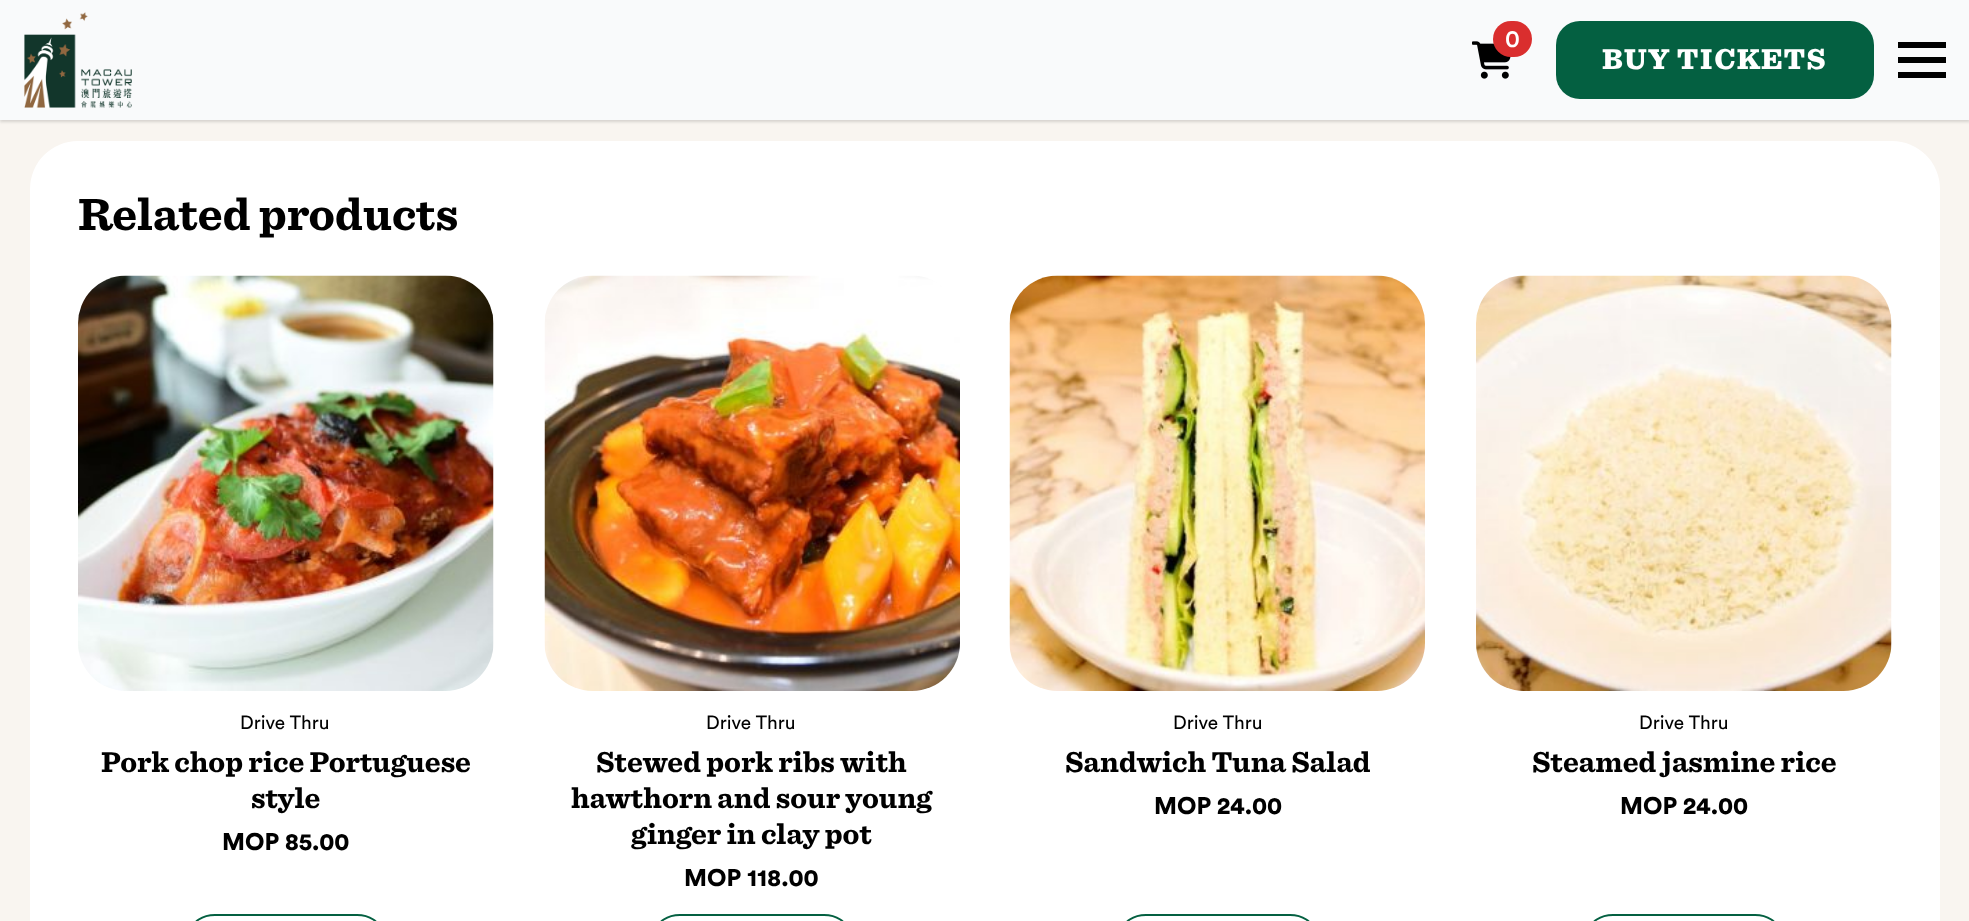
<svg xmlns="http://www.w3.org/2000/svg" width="1969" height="921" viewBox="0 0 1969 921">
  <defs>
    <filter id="blur1" x="-50%" y="-200%" width="200%" height="500%"><feGaussianBlur stdDeviation="1.5"/></filter>
  </defs>
  <rect width="100%" height="100%" fill="#f9f5f0"/>
  <rect x="0" y="2" width="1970" height="120" fill="#000000" fill-opacity="0.14" filter="url(#blur1)"/>
  <rect x="0" y="0" width="1969" height="120" fill="#f9fafb"/>
  <image x="24" y="12" width="108" height="96" href="img1.png"/>
  <image x="1472" y="41" width="39" height="38" href="img2.png"/>
  <rect x="1493" y="21" width="39" height="36" rx="18" fill="#da2e2e"/>
  <text x="1505" y="47" font-family="Circular" font-size="24" font-weight="500" fill="#ffffff">0</text>
  <rect x="1556" y="21" width="318" height="78" rx="24" fill="#046041"/>
  <text x="1602" y="69" font-family="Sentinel" font-size="30" font-weight="900" letter-spacing="1.5" fill="#ffffff">BUY TICKETS</text>
  <rect x="1898" y="57" width="48" height="6" fill="#000000"/>
  <rect x="1898" y="42" width="48" height="6" fill="#000000"/>
  <rect x="1898" y="72" width="48" height="6" fill="#000000"/>
  <rect x="30" y="141" width="1910" height="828" rx="48" fill="#ffffff"/>
  <text x="78" y="230" font-family="Sentinel" font-size="47" font-weight="bold" fill="#000000">Related products</text>
  <image x="78" y="275" width="416" height="416" href="img3.png"/>
  <text x="240" y="729" font-family="Circular" font-size="19" fill="#000000">Drive Thru</text>
  <text x="101" y="772" font-family="Sentinel" font-size="30" font-weight="bold" fill="#000000">Pork chop rice Portuguese</text>
  <text x="251" y="808" font-family="Sentinel" font-size="30" font-weight="bold" fill="#000000">style</text>
  <text x="222" y="850" font-family="Circular" font-size="24" font-weight="900" fill="#000000">MOP 85.00</text>
  <rect x="192" y="915" width="188" height="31" rx="23" fill="none" stroke="#046041" stroke-width="2"/>
  <image x="544" y="275" width="416" height="416" href="img4.png"/>
  <text x="706" y="729" font-family="Circular" font-size="19" fill="#000000">Drive Thru</text>
  <text x="596" y="772" font-family="Sentinel" font-size="30" font-weight="bold" fill="#000000">Stewed pork ribs with</text>
  <text x="571" y="808" font-family="Sentinel" font-size="30" font-weight="bold" fill="#000000">hawthorn and sour young</text>
  <text x="631" y="844" font-family="Sentinel" font-size="30" font-weight="bold" fill="#000000">ginger in clay pot</text>
  <text x="684" y="886" font-family="Circular" font-size="24" font-weight="900" fill="#000000">MOP 118.00</text>
  <rect x="657" y="915" width="190" height="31" rx="23" fill="none" stroke="#046041" stroke-width="2"/>
  <image x="1009" y="275" width="416" height="416" href="img5.png"/>
  <text x="1173" y="729" font-family="Circular" font-size="19" fill="#000000">Drive Thru</text>
  <text x="1065" y="772" font-family="Sentinel" font-size="30" font-weight="bold" fill="#000000">Sandwich Tuna Salad</text>
  <text x="1154" y="814" font-family="Circular" font-size="24" font-weight="900" fill="#000000">MOP 24.00</text>
  <rect x="1123" y="915" width="190" height="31" rx="23" fill="none" stroke="#046041" stroke-width="2"/>
  <image x="1476" y="275" width="416" height="416" href="img6.png"/>
  <text x="1639" y="729" font-family="Circular" font-size="19" fill="#000000">Drive Thru</text>
  <text x="1532" y="772" font-family="Sentinel" font-size="30" font-weight="bold" fill="#000000">Steamed jasmine rice</text>
  <text x="1620" y="814" font-family="Circular" font-size="24" font-weight="900" fill="#000000">MOP 24.00</text>
  <rect x="1590" y="915" width="188" height="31" rx="23" fill="none" stroke="#046041" stroke-width="2"/>
</svg>
